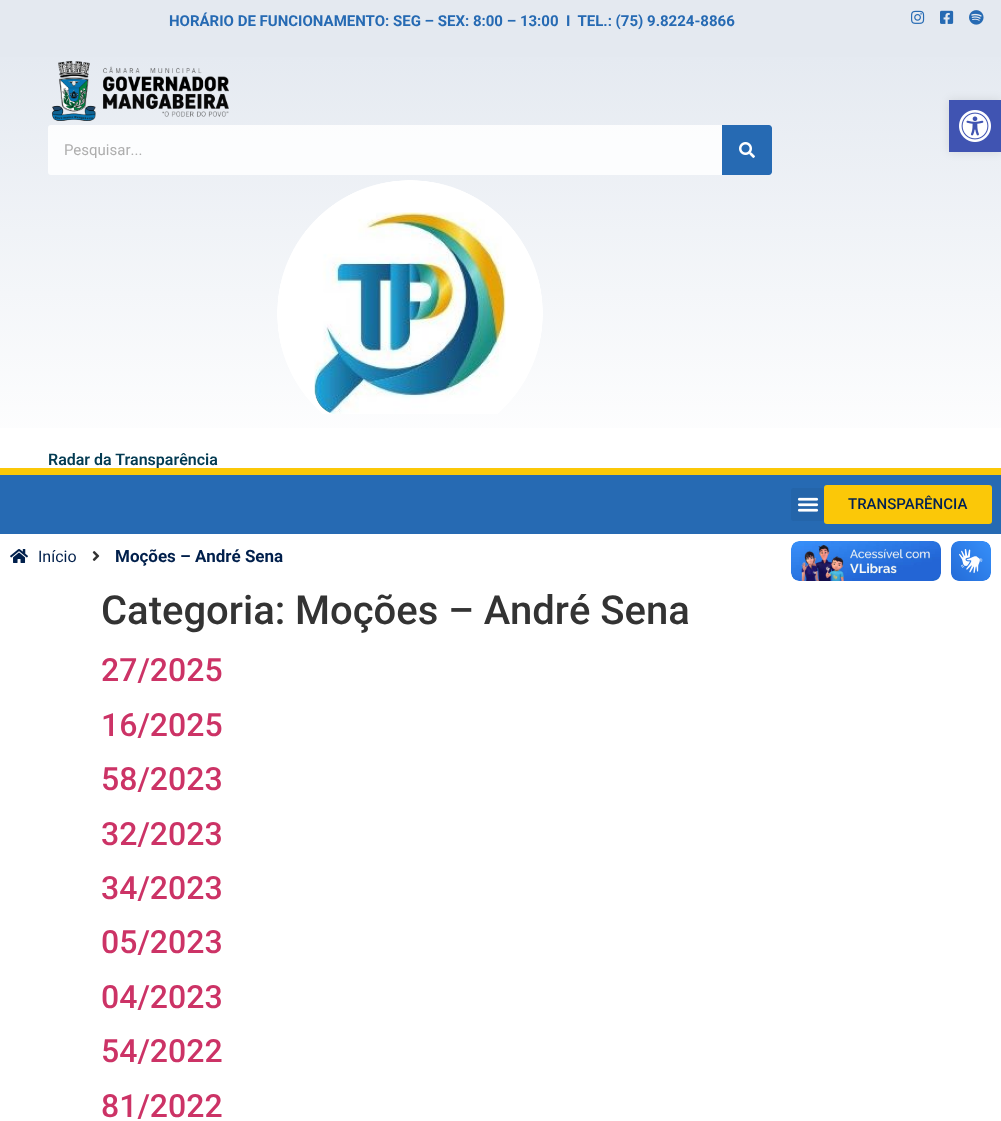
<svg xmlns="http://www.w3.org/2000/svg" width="1001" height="1121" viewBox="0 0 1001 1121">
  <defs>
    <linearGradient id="g1" gradientUnits="userSpaceOnUse" x1="501" y1="57" x2="501" y2="468"><stop offset="0" stop-color="#e5eaf1"/><stop offset="1" stop-color="#ffffff"/></linearGradient>
    <filter id="blur1" x="-50%" y="-200%" width="200%" height="500%"><feGaussianBlur stdDeviation="5"/></filter>
  </defs>
  <rect width="100%" height="100%" fill="#ffffff"/>
  <rect x="0" y="0" width="1001" height="57" fill="#e4e9f0"/>
  <text x="169" y="26" font-family="Roboto" font-size="15" font-weight="bold" fill="#266ab3" xml:space="preserve">HORÁRIO DE FUNCIONAMENTO: SEG – SEX: 8:00 – 13:00  I  TEL.: (75) 9.8224-8866</text>
  <image x="911" y="10" width="14" height="14" href="img1.png"/>
  <image x="940" y="10" width="14" height="14" href="img2.png"/>
  <image x="969" y="10" width="15" height="15" href="img3.png"/>
  <rect x="0" y="57" width="1001" height="371" fill="url(#g1)"/>
  <image x="51" y="60" width="178" height="61" href="img4.png"/>
  <rect x="48" y="125" width="724" height="50" rx="3" fill="#ffffff" fill-opacity="0.84"/>
  <text x="64" y="155" font-family="Roboto" font-size="15" fill="#aeaeae">Pesquisar...</text>
  <path d="M722 125H769C770.5 125 772 126.5 772 128V172C772 173.5 770.5 175 769 175H722Z" fill="#266ab3"/>
  <image x="739" y="142" width="16" height="16" href="img5.png"/>
  <image x="277" y="180" width="266" height="234" href="img6.png"/>
  <text x="48" y="465" font-family="Roboto" font-size="16" font-weight="600" fill="#033b52">Radar da Transparência</text>
  <rect x="0" y="475" width="1001" height="59" fill="#266ab3"/>
  <rect x="0" y="468" width="1001" height="7" fill="#fbc808"/>
  <rect x="791" y="488" width="33" height="33" rx="3" fill="#2465aa"/>
  <image x="797" y="497" width="22" height="15" href="img7.png"/>
  <rect x="824" y="485" width="168" height="39" rx="3" fill="#fbc808"/>
  <text x="848" y="509" font-family="Roboto" font-size="15" font-weight="500" fill="#012154">TRANSPARÊNCIA</text>
  <image x="10" y="549" width="18" height="14" href="img8.png"/>
  <text x="38" y="562" font-family="Roboto" font-size="16" fill="#001f4b">Início</text>
  <image x="92" y="551" width="8" height="10" href="img9.png"/>
  <text x="115" y="562" font-family="Roboto" font-size="17" font-weight="bold" fill="#001f4b">Moções – André Sena</text>
  <rect x="949" y="100" width="52" height="52" fill="#000000" fill-opacity="0.1" filter="url(#blur1)"/>
  <rect x="949" y="100" width="52" height="52" fill="#4054b2"/>
  <image x="959" y="110" width="32" height="32" href="img10.png"/>
  <image x="791" y="541" width="150" height="40" href="img11.png"/>
  <image x="951" y="541" width="40" height="40" href="img12.png"/>
  <text x="101" y="624" font-family="Roboto" font-size="40" font-weight="500" fill="#333333">Categoria:</text>
  <text x="295" y="624" font-family="Roboto" font-size="40" font-weight="500" fill="#333333">Moções – André Sena</text>
  <text x="101" y="681" font-family="Roboto" font-size="32" font-weight="500" fill="#cc3366">27/2025</text>
  <text x="101" y="736" font-family="Roboto" font-size="32" font-weight="500" fill="#cc3366">16/2025</text>
  <text x="101" y="790" font-family="Roboto" font-size="32" font-weight="500" fill="#cc3366">58/2023</text>
  <text x="101" y="845" font-family="Roboto" font-size="32" font-weight="500" fill="#cc3366">32/2023</text>
  <text x="101" y="899" font-family="Roboto" font-size="32" font-weight="500" fill="#cc3366">34/2023</text>
  <text x="101" y="953" font-family="Roboto" font-size="32" font-weight="500" fill="#cc3366">05/2023</text>
  <text x="101" y="1008" font-family="Roboto" font-size="32" font-weight="500" fill="#cc3366">04/2023</text>
  <text x="101" y="1062" font-family="Roboto" font-size="32" font-weight="500" fill="#cc3366">54/2022</text>
  <text x="101" y="1117" font-family="Roboto" font-size="32" font-weight="500" fill="#cc3366">81/2022</text>
</svg>
